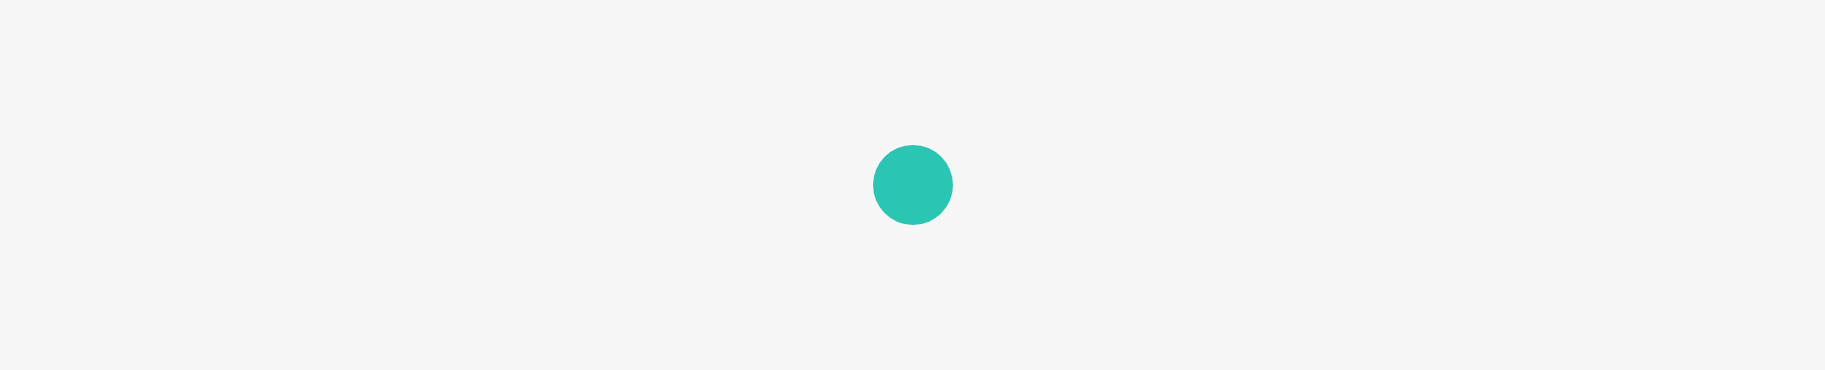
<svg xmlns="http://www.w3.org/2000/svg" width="1825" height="370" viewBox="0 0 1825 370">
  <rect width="100%" height="100%" fill="#f7f7f7"/>
  <circle cx="913" cy="185" r="40" fill="#2ac5b3"/>
</svg>
